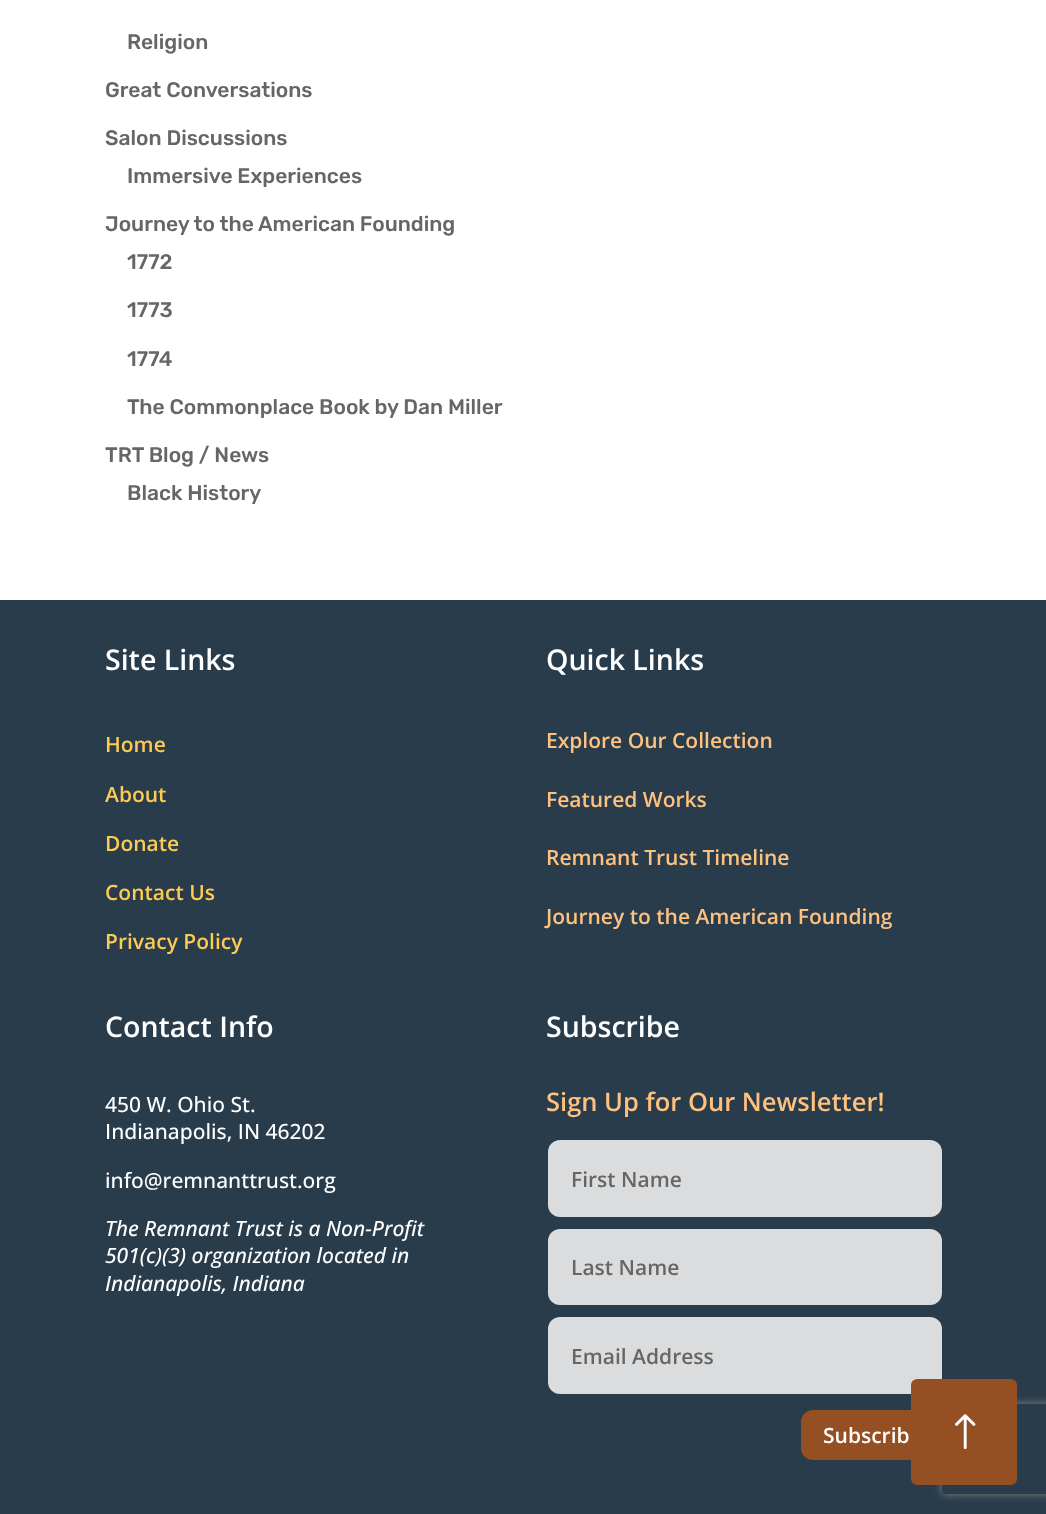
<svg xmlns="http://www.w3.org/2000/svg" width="1046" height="1514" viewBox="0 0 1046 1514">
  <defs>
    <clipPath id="clip1"><path d="M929 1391H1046V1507H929ZM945 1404H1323C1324.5 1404 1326 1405.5 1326 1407V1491C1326 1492.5 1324.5 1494 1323 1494H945C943.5 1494 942 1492.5 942 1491V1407C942 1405.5 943.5 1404 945 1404Z" clip-rule="evenodd"/></clipPath>
    <filter id="blur1" x="-50%" y="-200%" width="200%" height="500%"><feGaussianBlur stdDeviation="4"/></filter>
  </defs>
  <rect width="100%" height="100%" fill="#ffffff"/>
  <text x="127" y="49" font-family="Rubik" font-size="21" font-weight="300" fill="#666666">Religion</text>
  <text x="105" y="97" font-family="Rubik" font-size="21" font-weight="300" fill="#666666">Great Conversations</text>
  <text x="105" y="145" font-family="Rubik" font-size="21" font-weight="300" fill="#666666">Salon Discussions</text>
  <text x="127" y="183" font-family="Rubik" font-size="21" font-weight="300" fill="#666666">Immersive Experiences</text>
  <text x="105" y="231" font-family="Rubik" font-size="21" font-weight="300" fill="#666666">Journey to the American Founding</text>
  <text x="127" y="269" font-family="Rubik" font-size="21" font-weight="300" fill="#666666">1772</text>
  <text x="127" y="317" font-family="Rubik" font-size="21" font-weight="300" fill="#666666">1773</text>
  <text x="127" y="366" font-family="Rubik" font-size="21" font-weight="300" fill="#666666">1774</text>
  <text x="127" y="414" font-family="Rubik" font-size="21" font-weight="300" fill="#666666">The Commonplace Book by Dan Miller</text>
  <text x="105" y="462" font-family="Rubik" font-size="21" font-weight="300" fill="#666666">TRT Blog / News</text>
  <text x="127" y="500" font-family="Rubik" font-size="21" font-weight="300" fill="#666666">Black History</text>
  <rect x="0" y="600" width="1046" height="914" fill="#293c4c"/>
  <text x="105" y="670" font-family="Open Sans" font-size="28.5" font-weight="600" fill="#ffffff">Site Links</text>
  <text x="105" y="752" font-family="Open Sans" font-size="21" font-weight="600" fill="#fccb50">Home</text>
  <text x="105" y="802" font-family="Open Sans" font-size="21" font-weight="600" fill="#fccb50">About</text>
  <text x="105" y="851" font-family="Open Sans" font-size="21" font-weight="600" fill="#fccb50">Donate</text>
  <text x="105" y="900" font-family="Open Sans" font-size="21" font-weight="600" fill="#fccb50">Contact Us</text>
  <text x="105" y="949" font-family="Open Sans" font-size="21" font-weight="600" fill="#fccb50">Privacy Policy</text>
  <text x="546" y="670" font-family="Open Sans" font-size="28.5" font-weight="600" fill="#ffffff">Quick Links</text>
  <text x="546" y="748" font-family="Open Sans" font-size="21" font-weight="600" fill="#ffc17e">Explore Our Collection</text>
  <text x="546" y="807" font-family="Open Sans" font-size="21" font-weight="600" fill="#ffc17e">Featured Works</text>
  <text x="546" y="865" font-family="Open Sans" font-size="21" font-weight="600" fill="#ffc17e">Remnant Trust Timeline</text>
  <text x="546" y="924" font-family="Open Sans" font-size="21" font-weight="600" fill="#ffc17e">Journey to the American Founding</text>
  <text x="105" y="1037" font-family="Open Sans" font-size="28.5" font-weight="600" fill="#ffffff">Contact Info</text>
  <text x="105" y="1112" font-family="Open Sans" font-size="21" font-weight="500" fill="#ffffff">450 W. Ohio St.</text>
  <text x="105" y="1139" font-family="Open Sans" font-size="21" font-weight="500" fill="#ffffff">Indianapolis, IN 46202</text>
  <text x="105" y="1188" font-family="Open Sans" font-size="21" font-weight="500" fill="#ffffff">info@remnanttrust.org</text>
  <text x="105" y="1236" font-family="Open Sans" font-size="21" font-weight="500" font-style="italic" fill="#ffffff">The Remnant Trust is a Non-Profit</text>
  <text x="105" y="1263" font-family="Open Sans" font-size="21" font-weight="500" font-style="italic" fill="#ffffff">501(c)(3) organization located in</text>
  <text x="105" y="1291" font-family="Open Sans" font-size="21" font-weight="500" font-style="italic" fill="#ffffff">Indianapolis, Indiana</text>
  <text x="546" y="1037" font-family="Open Sans" font-size="28.5" font-weight="600" fill="#ffffff">Subscribe</text>
  <text x="546" y="1111" font-family="Open Sans" font-size="25.5" font-weight="600" fill="#ffc17e">Sign Up for Our Newsletter!</text>
  <rect x="548" y="1140" width="394" height="77" rx="12" fill="#dadcde"/>
  <text x="571" y="1187" font-family="Open Sans" font-size="21" font-weight="600" fill="#666666">First Name</text>
  <rect x="548" y="1229" width="394" height="76" rx="12" fill="#dadcde"/>
  <text x="571" y="1275" font-family="Open Sans" font-size="21" font-weight="600" fill="#666666">Last Name</text>
  <rect x="548" y="1317" width="394" height="77" rx="12" fill="#dadcde"/>
  <text x="571" y="1364" font-family="Open Sans" font-size="21" font-weight="600" fill="#666666">Email Address</text>
  <rect x="801" y="1410" width="141" height="50" rx="12" fill="#945023"/>
  <text x="823" y="1443" font-family="Open Sans" font-size="21" font-weight="600" fill="#ffffff">Subscrib</text>
  <g clip-path="url(#clip1)">
    <rect x="942" y="1404" width="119" height="90" rx="3" fill="#808080" filter="url(#blur1)"/>
  </g>
  <rect x="911" y="1379" width="106" height="106" rx="6" fill="#945023"/>
  <image x="955" y="1414" width="21" height="36" href="img1.png"/>
</svg>
